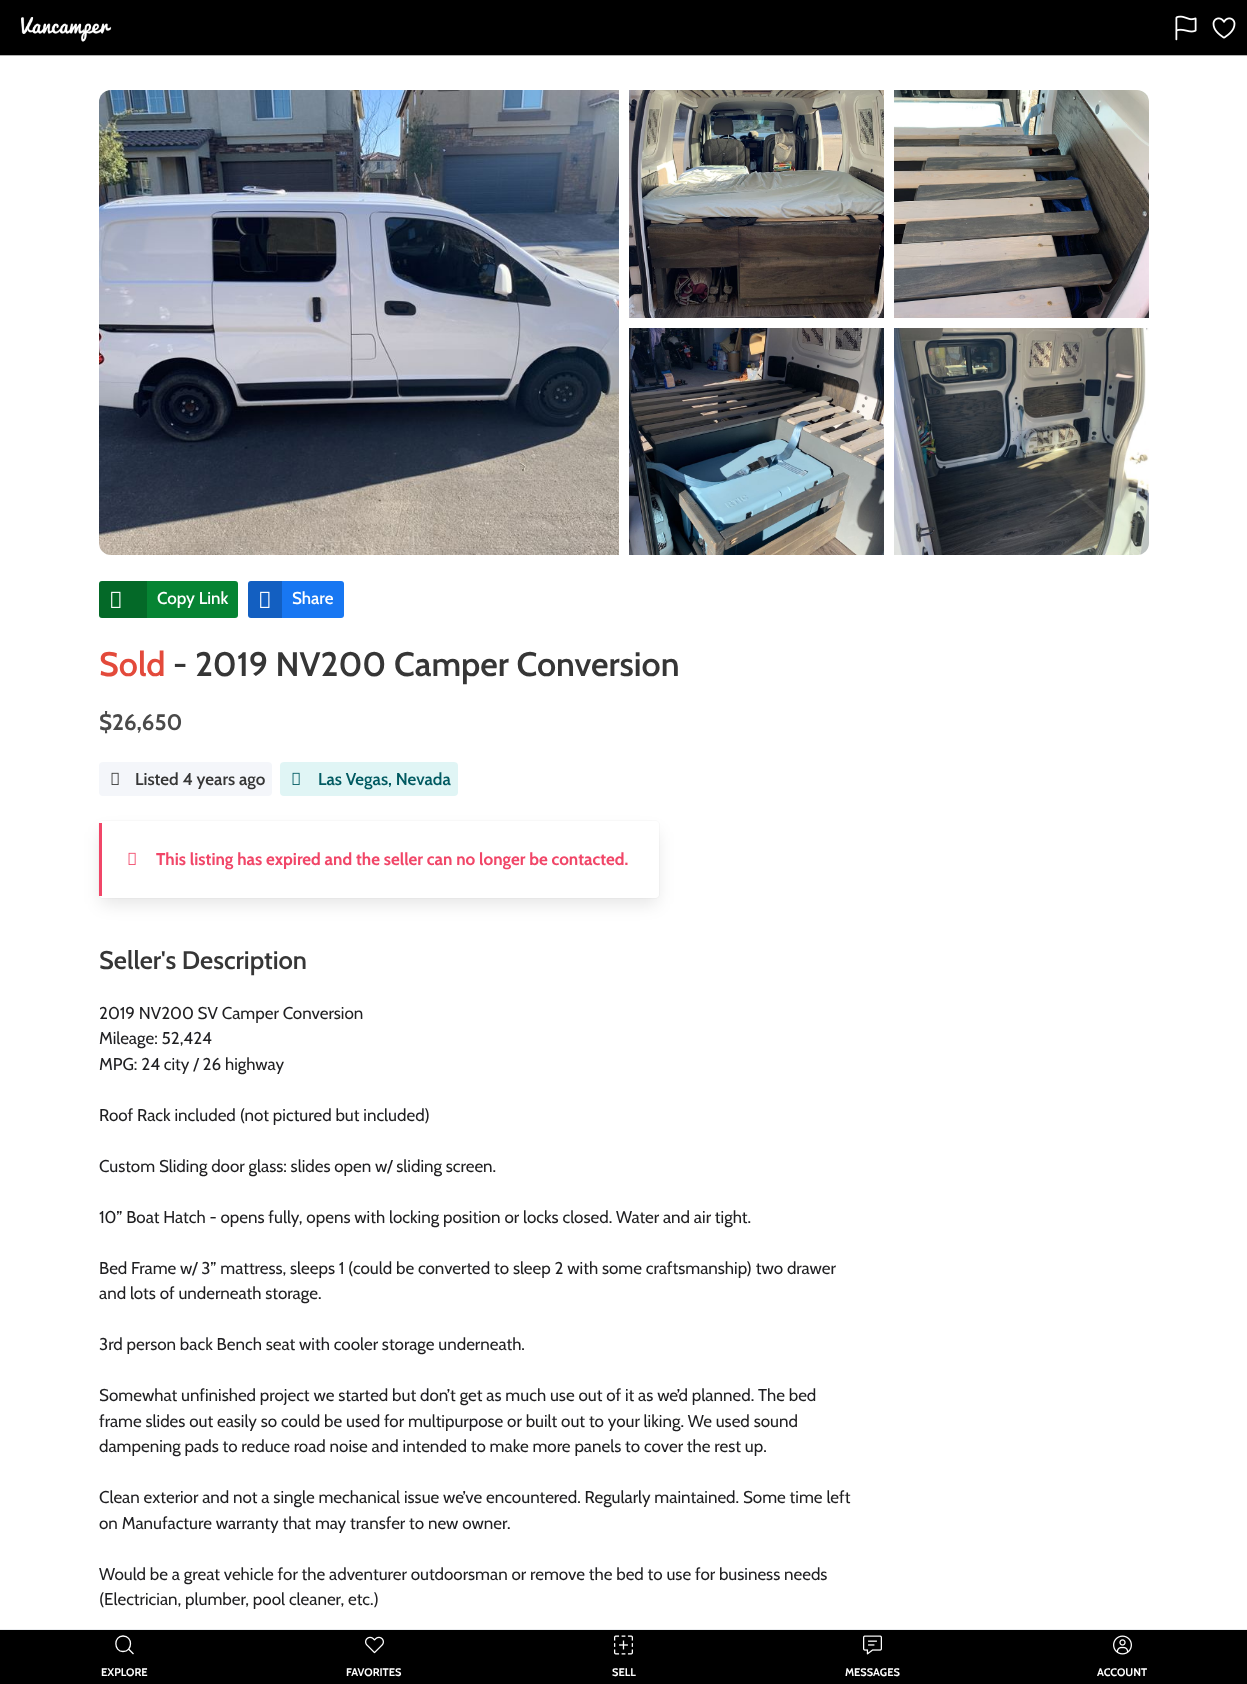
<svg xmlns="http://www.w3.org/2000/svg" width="1247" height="1684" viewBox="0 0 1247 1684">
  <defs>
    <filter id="blur1" x="-50%" y="-200%" width="200%" height="500%"><feGaussianBlur stdDeviation="8.5"/></filter>
  </defs>
  <rect width="100%" height="100%" fill="#ffffff"/>
  <rect x="0" y="0" width="1247" height="55" fill="#000000"/>
  <rect x="0" y="55" width="1247" height="1" fill="#b2b2b2"/>
  <image x="21" y="17" width="91" height="25" href="img1.png"/>
  <image x="1175" y="15" width="22" height="26" href="img2.png"/>
  <image x="1212" y="17" width="24" height="22" href="img3.png"/>
  <image x="99" y="90" width="520" height="465" href="img4.png"/>
  <image x="629" y="90" width="255" height="228" href="img5.png"/>
  <image x="894" y="90" width="255" height="228" href="img6.png"/>
  <image x="629" y="328" width="255" height="227" href="img7.png"/>
  <image x="894" y="328" width="255" height="227" href="img8.png"/>
  <rect x="99" y="581" width="139" height="37" rx="3" fill="#068433"/>
  <path d="M102 581H147V618H102C100.5 618 99 616.5 99 615V584C99 582.5 100.5 581 102 581Z" fill="#000000" fill-opacity="0.2"/>
  <image x="111" y="591" width="10" height="17" href="img9.png"/>
  <text x="157" y="604" font-family="Cabin" font-size="17" font-weight="500" fill="#ffffff">Copy Link</text>
  <rect x="248" y="581" width="96" height="37" rx="3" fill="#1877f2"/>
  <path d="M251 581H282V618H251C249.5 618 248 616.5 248 615V584C248 582.5 249.5 581 251 581Z" fill="#000000" fill-opacity="0.2"/>
  <image x="260" y="591" width="10" height="17" href="img10.png"/>
  <text x="292" y="604" font-family="Cabin" font-size="17" font-weight="500" fill="#ffffff">Share</text>
  <text x="99" y="676" font-family="Cabin" font-size="34" font-weight="600" fill="#e34a3b">Sold</text>
  <text x="173" y="676" font-family="Cabin" font-size="34" font-weight="600" fill="#363636">- 2019 NV200 Camper Conversion</text>
  <text x="99" y="730" font-family="Cabin" font-size="22.5" font-weight="bold" fill="#4a4a4a">$26,650</text>
  <rect x="99" y="762" width="173" height="34" rx="4" fill="#f4f6fa"/>
  <image x="111" y="772" width="8" height="13" href="img11.png"/>
  <text x="135" y="785" font-family="Cabin" font-size="17" font-weight="600" fill="#363636">Listed 4 years ago</text>
  <rect x="280" y="762" width="178" height="34" rx="4" fill="#e0f5f5"/>
  <image x="292" y="772" width="8" height="13" href="img12.png"/>
  <text x="318" y="785" font-family="Cabin" font-size="17" font-weight="600" fill="#005a61">Las Vegas, Nevada</text>
  <rect x="98.5" y="820.5" width="561" height="78" rx="4.5" fill="none" stroke="#fafafa"/>
  <rect x="101" y="832" width="556" height="72" rx="2" fill="#0a0a0a" fill-opacity="0.1" filter="url(#blur1)"/>
  <rect x="99" y="821" width="560" height="77" rx="4" fill="#ffffff"/>
  <rect x="99" y="823" width="3" height="73" fill="#f14668"/>
  <image x="128" y="852" width="8" height="13" href="img13.png"/>
  <text x="156" y="865" font-family="Cabin" font-size="17" font-weight="bold" fill="#f14668">This listing has expired and the seller can no longer be contacted.</text>
  <text x="99" y="969" font-family="Cabin" font-size="25.5" font-weight="600" fill="#363636">Seller's Description</text>
  <text x="99" y="1019" font-family="Cabin" font-size="17" fill="#1f1f21">2019 NV200 SV Camper Conversion</text>
  <text x="99" y="1044" font-family="Cabin" font-size="17" fill="#1f1f21">Mileage: 52,424</text>
  <text x="99" y="1070" font-family="Cabin" font-size="17" fill="#1f1f21">MPG: 24 city / 26 highway</text>
  <text x="99" y="1121" font-family="Cabin" font-size="17" fill="#1f1f21">Roof Rack included (not pictured but included)</text>
  <text x="99" y="1172" font-family="Cabin" font-size="17" fill="#1f1f21">Custom Sliding door glass: slides open w/ sliding screen.</text>
  <text x="99" y="1223" font-family="Cabin" font-size="17" fill="#1f1f21">10” Boat Hatch - opens fully, opens with locking position or locks closed. Water and air tight.</text>
  <text x="99" y="1274" font-family="Cabin" font-size="17" fill="#1f1f21">Bed Frame w/ 3” mattress, sleeps 1 (could be converted to sleep 2 with some craftsmanship) two drawer</text>
  <text x="99" y="1299" font-family="Cabin" font-size="17" fill="#1f1f21">and lots of underneath storage.</text>
  <text x="99" y="1350" font-family="Cabin" font-size="17" fill="#1f1f21">3rd person back Bench seat with cooler storage underneath.</text>
  <text x="99" y="1401" font-family="Cabin" font-size="17" fill="#1f1f21">Somewhat unfinished project we started but don’t get as much use out of it as we’d planned. The bed</text>
  <text x="99" y="1427" font-family="Cabin" font-size="17" fill="#1f1f21">frame slides out easily so could be used for multipurpose or built out to your liking. We used sound</text>
  <text x="99" y="1452" font-family="Cabin" font-size="17" fill="#1f1f21">dampening pads to reduce road noise and intended to make more panels to cover the rest up.</text>
  <text x="99" y="1503" font-family="Cabin" font-size="17" fill="#1f1f21">Clean exterior and not a single mechanical issue we’ve encountered. Regularly maintained. Some time left</text>
  <text x="99" y="1529" font-family="Cabin" font-size="17" fill="#1f1f21">on Manufacture warranty that may transfer to new owner.</text>
  <text x="99" y="1580" font-family="Cabin" font-size="17" fill="#1f1f21">Would be a great vehicle for the adventurer outdoorsman or remove the bed to use for business needs</text>
  <text x="99" y="1605" font-family="Cabin" font-size="17" fill="#1f1f21">(Electrician, plumber, pool cleaner, etc.)</text>
  <rect x="0" y="1630" width="1247" height="54" fill="#000000"/>
  <rect x="0" y="1629" width="1247" height="1" fill="#eaecef"/>
  <path d="M133.5 1654L128.5 1649M123 1651.5C113.5 1651.5 113.5 1636 123 1636C133 1636 133 1651.5 123 1651.5Z" fill="none" stroke="#ffffff" stroke-width="1.3"/>
  <text x="101" y="1676" font-family="Cabin" font-size="11" font-weight="bold" fill="#ffffff">EXPLORE</text>
  <image x="365" y="1636" width="19" height="18" href="img14.png"/>
  <text x="346" y="1676" font-family="Cabin" font-size="11" font-weight="bold" fill="#ffffff">FAVORITES</text>
  <image x="614" y="1635" width="19" height="20" href="img15.png"/>
  <text x="612" y="1676" font-family="Cabin" font-size="11" font-weight="bold" fill="#ffffff">SELL</text>
  <image x="863" y="1635" width="19" height="20" href="img16.png"/>
  <text x="845" y="1676" font-family="Cabin" font-size="11" font-weight="bold" fill="#ffffff">MESSAGES</text>
  <image x="1113" y="1635" width="19" height="20" href="img17.png"/>
  <text x="1097" y="1676" font-family="Cabin" font-size="11" font-weight="bold" fill="#ffffff">ACCOUNT</text>
</svg>
